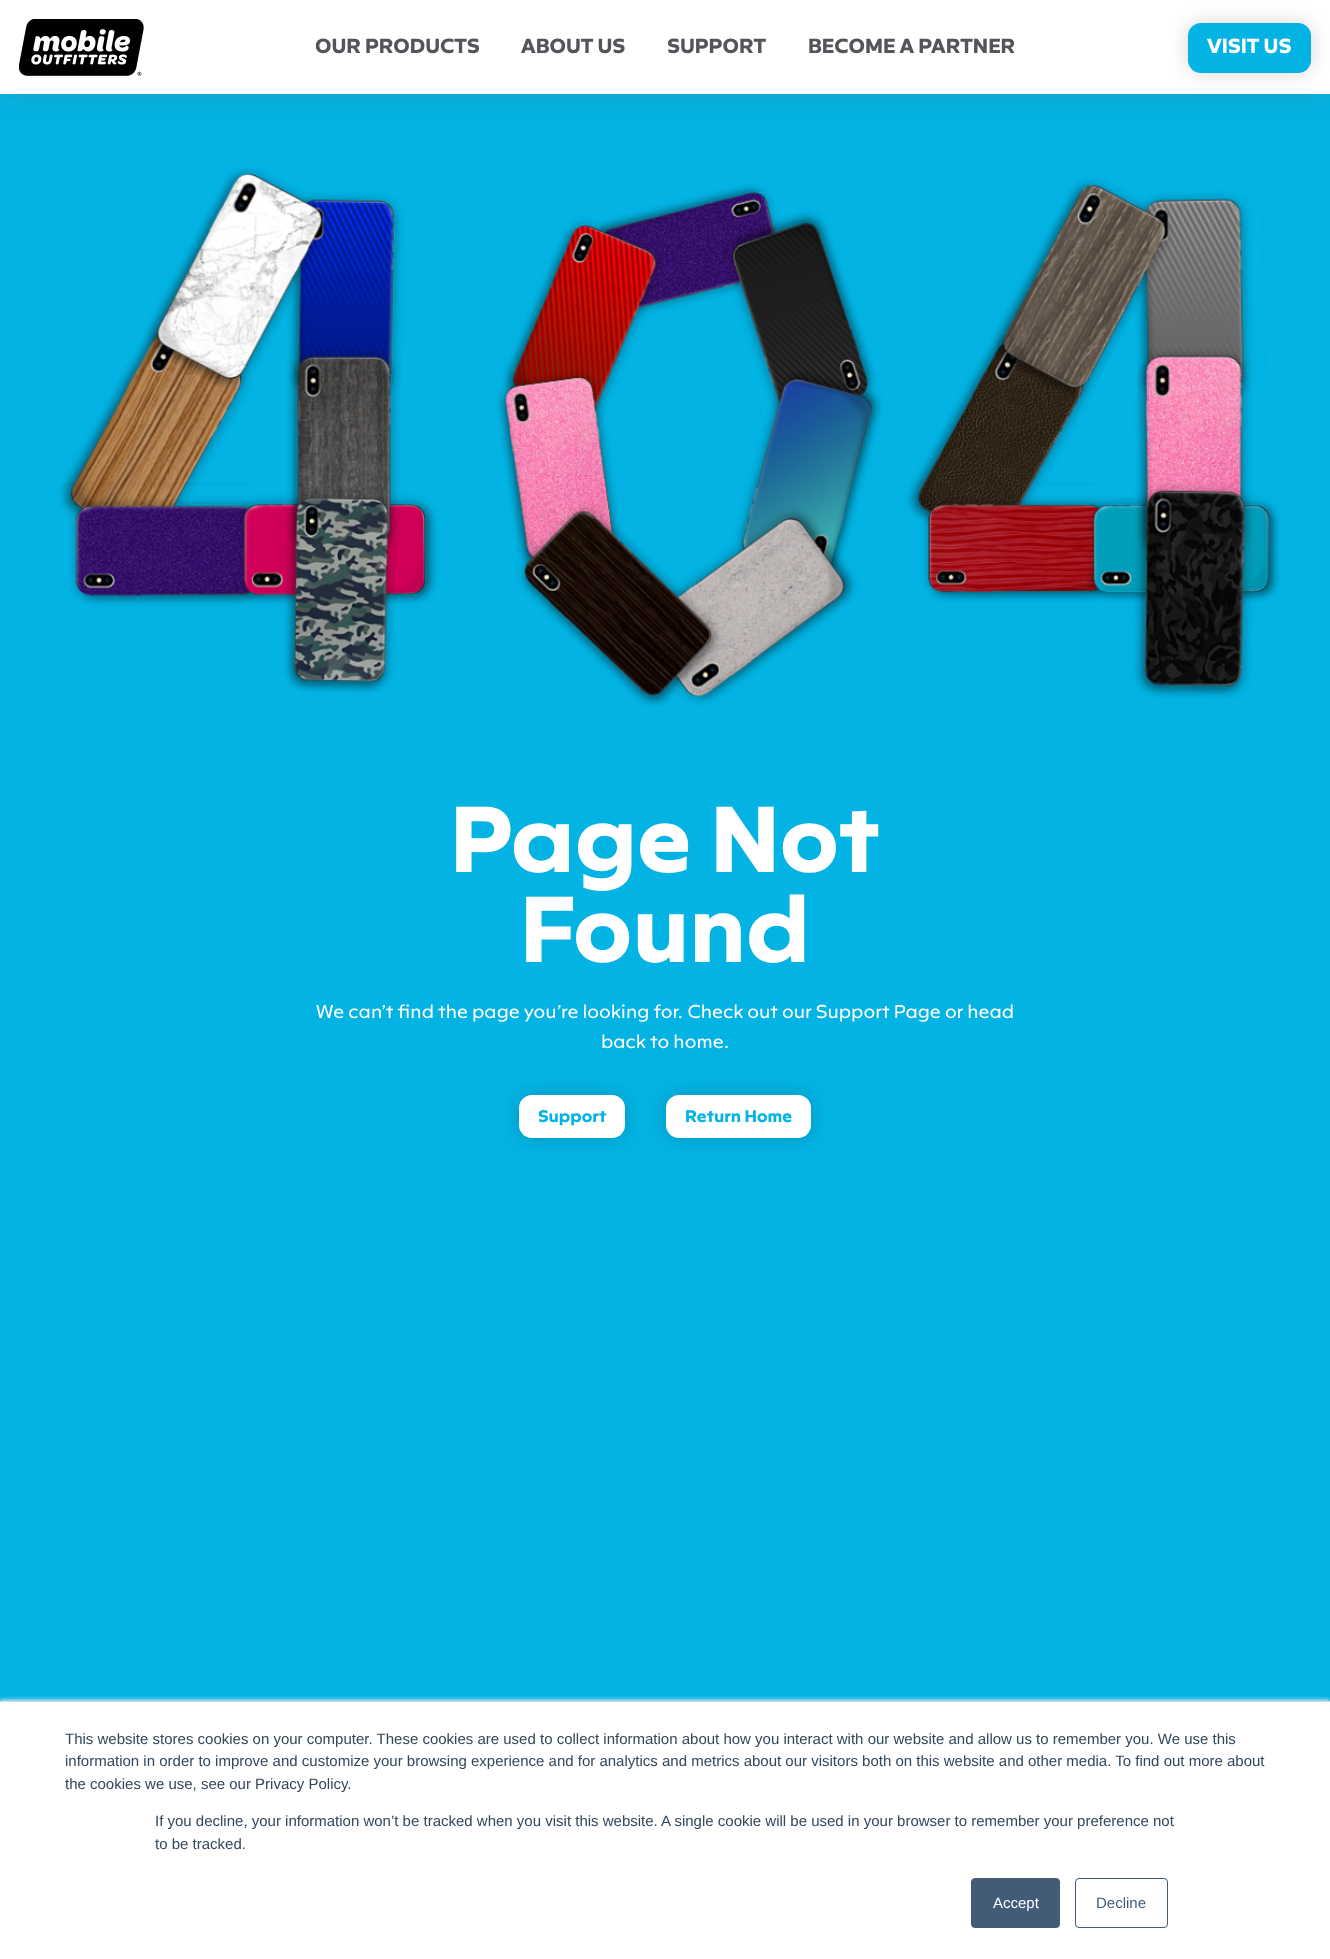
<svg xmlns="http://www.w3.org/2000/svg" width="1330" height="1959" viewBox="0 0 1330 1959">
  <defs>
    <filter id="blur1" x="-50%" y="-200%" width="200%" height="500%"><feGaussianBlur stdDeviation="12.5"/></filter>
    <filter id="blur2" x="-50%" y="-200%" width="200%" height="500%"><feGaussianBlur stdDeviation="9.5"/></filter>
    <filter id="blur3" x="-50%" y="-200%" width="200%" height="500%"><feGaussianBlur stdDeviation="2"/></filter>
  </defs>
  <rect width="100%" height="100%" fill="#02b3e3"/>
  <rect x="0" y="6" width="1330" height="94" fill="#606060" fill-opacity="0.16" filter="url(#blur1)"/>
  <rect x="0" y="0" width="1330" height="94" fill="#ffffff"/>
  <image x="19" y="19" width="125" height="57" href="img1.png"/>
  <text x="315" y="53" font-family="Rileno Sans" font-size="22" font-weight="bold" fill="#54545a">OUR PRODUCTS</text>
  <text x="521" y="53" font-family="Rileno Sans" font-size="22" font-weight="bold" fill="#54545a">ABOUT US</text>
  <text x="667" y="53" font-family="Rileno Sans" font-size="22" font-weight="bold" fill="#54545a">SUPPORT</text>
  <text x="808" y="53" font-family="Rileno Sans" font-size="22" font-weight="bold" fill="#54545a">BECOME A PARTNER</text>
  <rect x="1188" y="23" width="123" height="50" rx="13" fill="#000000" fill-opacity="0.16" filter="url(#blur2)"/>
  <rect x="1188" y="23" width="123" height="50" rx="13" fill="#02b3e3"/>
  <text x="1207" y="53" font-family="Rileno Sans" font-size="22" font-weight="bold" fill="#ffffff">VISIT US</text>
  <image x="59" y="167" width="1221" height="540" href="img2.png"/>
  <text x="450" y="872" font-family="Rileno Sans" font-size="100" font-weight="bold" fill="#ffffff">Page Not</text>
  <text x="520" y="962" font-family="Rileno Sans" font-size="100" font-weight="bold" fill="#ffffff">Found</text>
  <text x="316" y="1018" font-family="Rileno Sans" font-size="20" fill="#ffffff">We can’t find the page you’re looking for. Check out our Support Page or head</text>
  <text x="601" y="1048" font-family="Rileno Sans" font-size="20" fill="#ffffff">back to home.</text>
  <rect x="519" y="1095" width="106" height="43" rx="13" fill="#000000" fill-opacity="0.16" filter="url(#blur2)"/>
  <rect x="519" y="1095" width="106" height="43" rx="13" fill="#ffffff"/>
  <text x="538" y="1122" font-family="Rileno Sans" font-size="18" font-weight="bold" fill="#02b3e3">Support</text>
  <rect x="666" y="1095" width="145" height="43" rx="13" fill="#000000" fill-opacity="0.16" filter="url(#blur2)"/>
  <rect x="666" y="1095" width="145" height="43" rx="13" fill="#ffffff"/>
  <text x="685" y="1122" font-family="Rileno Sans" font-size="18" font-weight="bold" fill="#02b3e3">Return Home</text>
  <rect x="0" y="1700" width="1330" height="259" fill="#eaf0f6" filter="url(#blur3)"/>
  <rect x="0" y="1702" width="1330" height="257" fill="#ffffff"/>
  <rect x="0" y="1701" width="1330" height="1" fill="#cbd6e2"/>
  <text x="65" y="1744" font-family="Liberation Sans" font-size="15" fill="#33475b">This website stores cookies on your computer. These cookies are used to collect information about how you interact with our website and allow us to remember you. We use this</text>
  <text x="65" y="1766" font-family="Liberation Sans" font-size="15" fill="#33475b">information in order to improve and customize your browsing experience and for analytics and metrics about our visitors both on this website and other media. To find out more about</text>
  <text x="65" y="1789" font-family="Liberation Sans" font-size="15" fill="#33475b">the cookies we use, see our Privacy Policy.</text>
  <text x="155" y="1826" font-family="Liberation Sans" font-size="15" fill="#33475b">If you decline, your information won’t be tracked when you visit this website. A single cookie will be used in your browser to remember your preference not</text>
  <text x="155" y="1849" font-family="Liberation Sans" font-size="15" fill="#33475b">to be tracked.</text>
  <rect x="971.5" y="1878.5" width="88" height="49" rx="3.5" fill="#425b76" stroke="#425b76"/>
  <text x="993" y="1908" font-family="Liberation Sans" font-size="15" fill="#ffffff">Accept</text>
  <rect x="1075.5" y="1878.5" width="92" height="49" rx="3.5" fill="none" stroke="#425b76"/>
  <text x="1096" y="1908" font-family="Liberation Sans" font-size="15" fill="#425b76">Decline</text>
</svg>
